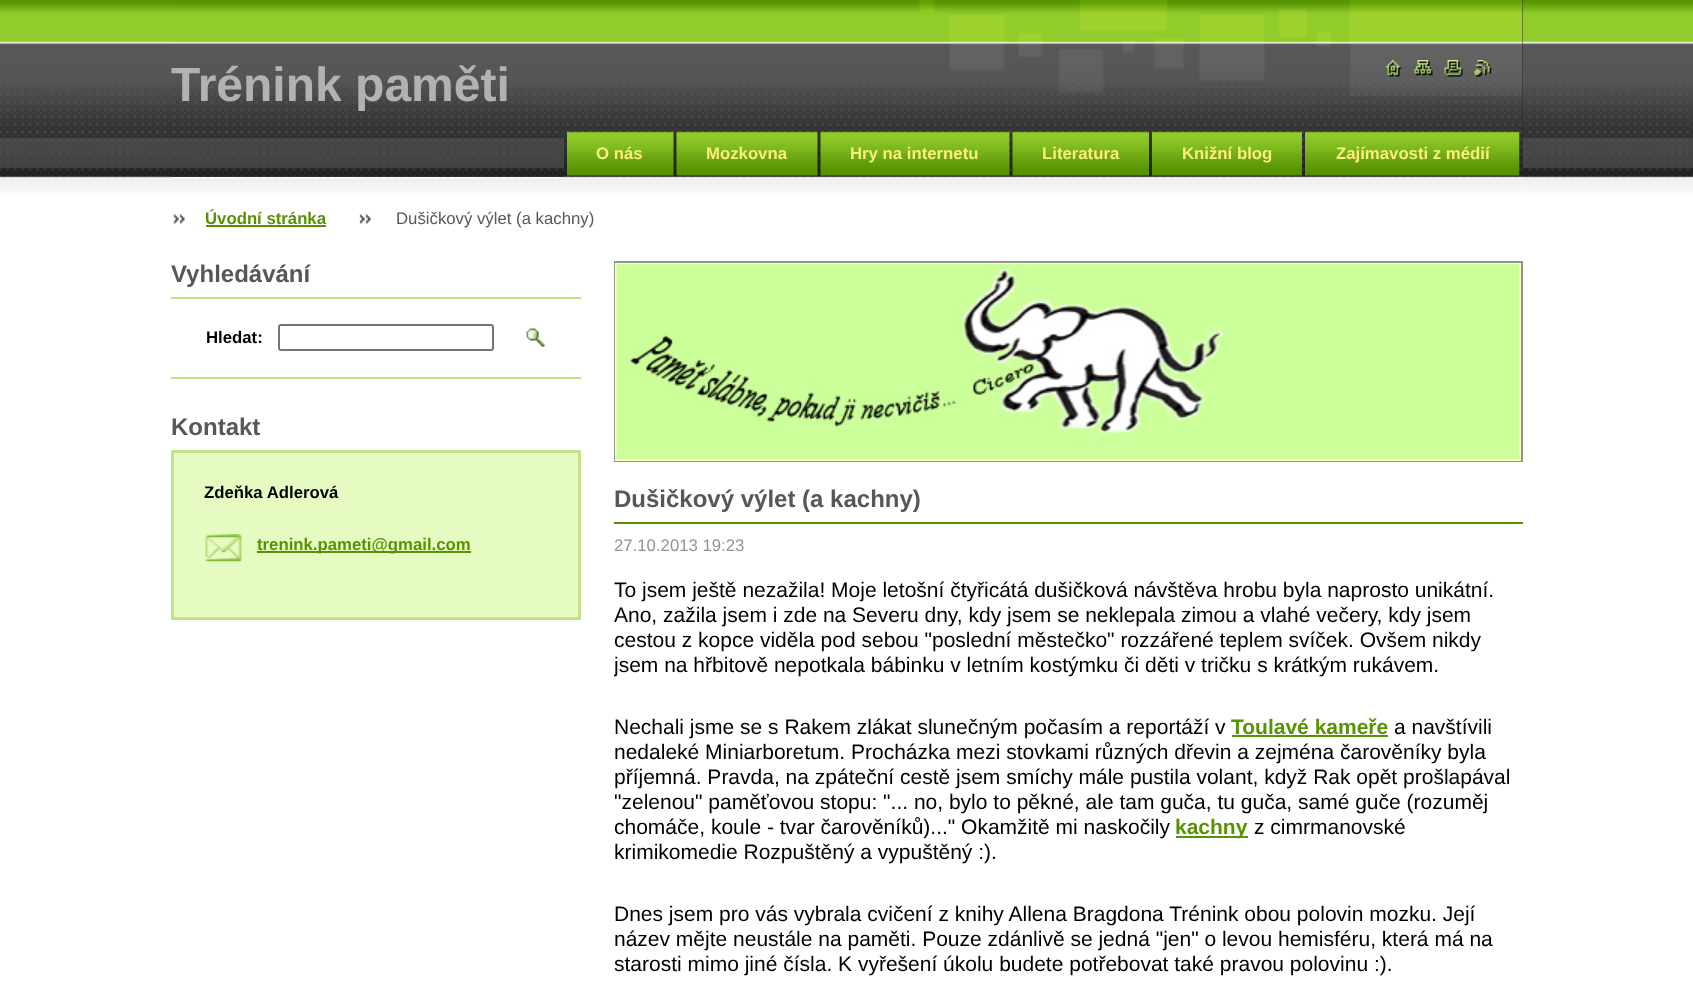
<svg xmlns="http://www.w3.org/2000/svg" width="1693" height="1005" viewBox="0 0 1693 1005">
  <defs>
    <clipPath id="clip1"><rect x="614" y="261" width="909" height="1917"/></clipPath>
  </defs>
  <rect width="100%" height="100%" fill="#ffffff"/>
  <image x="0" y="0" width="1693" height="195" href="img1.png"/>
  <rect x="1522" y="0" width="1" height="177" fill="#262626"/>
  <image x="171" y="0" width="1352" height="177" href="img2.png"/>
  <text x="171" y="101" font-family="Liberation Sans" font-size="48" font-weight="bold" fill="#b2b2b2">Trénink paměti</text>
  <image x="1385" y="60" width="17" height="17" href="img3.png"/>
  <image x="1414" y="60" width="19" height="16" href="img4.png"/>
  <image x="1444" y="60" width="19" height="17" href="img5.png"/>
  <image x="1474" y="60" width="18" height="17" href="img6.png"/>
  <rect x="171" y="177" width="1352" height="18" fill="#ffffff"/>
  <image x="171" y="177" width="1352" height="18" href="img14.png"/>
  <image x="564" y="123" width="959" height="56" href="img7.png"/>
  <image x="567" y="131" width="107" height="45" href="img8.png"/>
  <text x="596" y="159" font-family="Liberation Sans" font-size="16.75" font-weight="bold" fill="#f9ef7f">O nás</text>
  <image x="676" y="131" width="142" height="45" href="img9.png"/>
  <text x="706" y="159" font-family="Liberation Sans" font-size="16.75" font-weight="bold" fill="#f9ef7f">Mozkovna</text>
  <image x="820" y="131" width="190" height="45" href="img10.png"/>
  <text x="850" y="159" font-family="Liberation Sans" font-size="16.75" font-weight="bold" fill="#f9ef7f">Hry na internetu</text>
  <image x="1012" y="131" width="137" height="45" href="img11.png"/>
  <text x="1042" y="159" font-family="Liberation Sans" font-size="16.75" font-weight="bold" fill="#f9ef7f">Literatura</text>
  <image x="1152" y="131" width="150" height="45" href="img12.png"/>
  <text x="1182" y="159" font-family="Liberation Sans" font-size="16.75" font-weight="bold" fill="#f9ef7f">Knižní blog</text>
  <image x="1305" y="131" width="215" height="45" href="img13.png"/>
  <text x="1336" y="159" font-family="Liberation Sans" font-size="16.75" font-weight="bold" fill="#f9ef7f">Zajímavosti z médií</text>
  <image x="173" y="214" width="12" height="10" href="img15.png"/>
  <text x="205" y="224" font-family="Liberation Sans" font-size="16.75" font-weight="bold" fill="#589203">Úvodní stránka</text>
  <rect x="206" y="225" width="120" height="2" fill="#589203"/>
  <image x="359" y="214" width="12" height="10" href="img16.png"/>
  <text x="396" y="224" font-family="Liberation Sans" font-size="16.75" fill="#575757">Dušičkový výlet (a kachny)</text>
  <text x="171" y="282" font-family="Liberation Sans" font-size="24" font-weight="bold" fill="#575757">Vyhledávání</text>
  <rect x="171" y="297" width="410" height="2" fill="#bce37c"/>
  <rect x="171" y="377" width="410" height="2" fill="#bce37c"/>
  <text x="206" y="343" font-family="Liberation Sans" font-size="16.75" font-weight="bold" fill="#000000">Hledat:</text>
  <rect x="279" y="325" width="214" height="25" rx="2" fill="none" stroke="#767676" stroke-width="2"/>
  <image x="526" y="328" width="19" height="19" href="img17.png"/>
  <text x="171" y="435" font-family="Liberation Sans" font-size="24" font-weight="bold" fill="#575757">Kontakt</text>
  <rect x="172.5" y="451.5" width="407" height="167" fill="#e6fbc2" stroke="#c1e48a" stroke-width="3"/>
  <text x="204" y="498" font-family="Liberation Sans" font-size="16.75" font-weight="bold" fill="#000000">Zdeňka Adlerová</text>
  <image x="205" y="534" width="37" height="28" href="img18.png"/>
  <rect x="257" y="551" width="214" height="2" fill="#589203"/>
  <text x="257" y="550" font-family="Liberation Sans" font-size="16.75" font-weight="bold" fill="#589203">trenink.pameti@gmail.com</text>
  <rect x="615" y="262" width="907" height="199" fill="none" stroke="#939393" stroke-width="2"/>
  <rect x="616" y="264" width="904" height="196" fill="none" stroke="#ffffbe" stroke-width="2"/>
  <image x="616" y="264" width="904" height="195" href="img19.png"/>
  <text x="614" y="507" font-family="Liberation Sans" font-size="24" font-weight="bold" fill="#575757">Dušičkový výlet (a kachny)</text>
  <rect x="614" y="522" width="909" height="2" fill="#569102"/>
  <text x="614" y="551" font-family="Liberation Sans" font-size="16.75" fill="#939393">27.10.2013 19:23</text>
  <text x="614" y="597" font-family="Liberation Sans" font-size="21" fill="#000000">To jsem ještě nezažila! Moje letošní čtyřicátá dušičková návštěva hrobu byla naprosto unikátní.</text>
  <text x="614" y="622" font-family="Liberation Sans" font-size="21" fill="#000000">Ano, zažila jsem i zde na Severu dny, kdy jsem se neklepala zimou a vlahé večery, kdy jsem</text>
  <text x="614" y="647" font-family="Liberation Sans" font-size="21" fill="#000000">cestou z kopce viděla pod sebou "poslední městečko" rozzářené teplem svíček. Ovšem nikdy</text>
  <g clip-path="url(#clip1)">
    <text x="614" y="672" font-family="Liberation Sans" font-size="21" fill="#000000">jsem na hřbitově nepotkala bábinku v letním kostýmku či děti v tričku s krátkým rukávem.</text>
  </g>
  <text x="614" y="734" font-family="Liberation Sans" font-size="21" fill="#000000">Nechali jsme se s Rakem zlákat slunečným počasím a reportáží v</text>
  <text x="1231" y="734" font-family="Liberation Sans" font-size="21" font-weight="bold" fill="#589203">Toulavé kameře</text>
  <rect x="1232" y="735" width="156" height="2" fill="#589203"/>
  <text x="1394" y="734" font-family="Liberation Sans" font-size="21" fill="#000000">a navštívili</text>
  <text x="614" y="759" font-family="Liberation Sans" font-size="21" fill="#000000">nedaleké Miniarboretum. Procházka mezi stovkami různých dřevin a zejména čarověníky byla</text>
  <text x="614" y="784" font-family="Liberation Sans" font-size="21" fill="#000000">příjemná. Pravda, na zpáteční cestě jsem smíchy mále pustila volant, když Rak opět prošlapával</text>
  <text x="614" y="809" font-family="Liberation Sans" font-size="21" fill="#000000">"zelenou" paměťovou stopu: "... no, bylo to pěkné, ale tam guča, tu guča, samé guče (rozuměj</text>
  <text x="614" y="834" font-family="Liberation Sans" font-size="21" fill="#000000">chomáče, koule - tvar čarověníků)..." Okamžitě mi naskočily</text>
  <rect x="1176" y="836" width="72" height="2" fill="#589203"/>
  <text x="1175" y="834" font-family="Liberation Sans" font-size="21" font-weight="bold" fill="#589203">kachny</text>
  <text x="1254" y="834" font-family="Liberation Sans" font-size="21" fill="#000000">z cimrmanovské</text>
  <text x="614" y="859" font-family="Liberation Sans" font-size="21" fill="#000000">krimikomedie Rozpuštěný a vypuštěný :).</text>
  <text x="614" y="921" font-family="Liberation Sans" font-size="21" fill="#000000">Dnes jsem pro vás vybrala cvičení z knihy Allena Bragdona Trénink obou polovin mozku. Její</text>
  <text x="614" y="946" font-family="Liberation Sans" font-size="21" fill="#000000">název mějte neustále na paměti. Pouze zdánlivě se jedná "jen" o levou hemisféru, která má na</text>
  <text x="614" y="971" font-family="Liberation Sans" font-size="21" fill="#000000">starosti mimo jiné čísla. K vyřešení úkolu budete potřebovat také pravou polovinu :).</text>
</svg>
